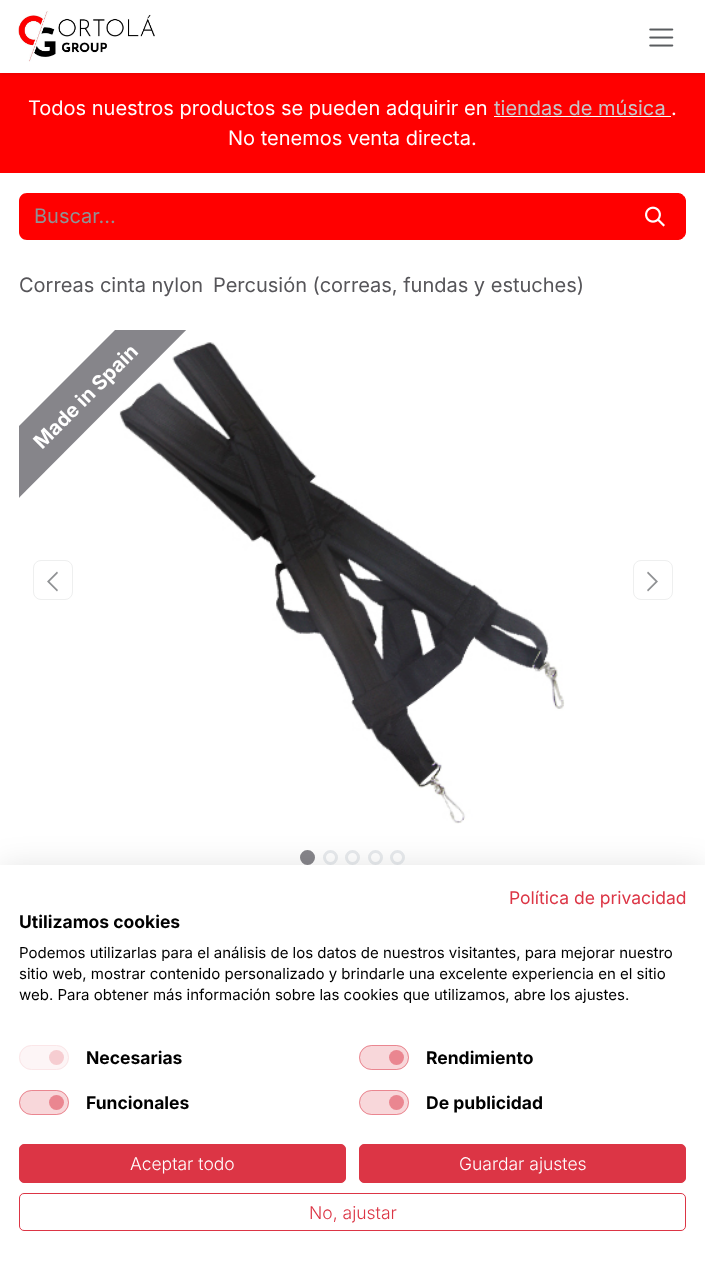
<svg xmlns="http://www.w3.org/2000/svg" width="705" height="1265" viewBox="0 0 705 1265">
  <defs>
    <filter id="blur1" x="-50%" y="-200%" width="200%" height="500%"><feGaussianBlur stdDeviation="2"/></filter>
    <clipPath id="clip1"><rect x="19" y="330" width="667" height="500"/></clipPath>
    <filter id="blur2" x="-50%" y="-200%" width="200%" height="500%"><feGaussianBlur stdDeviation="15"/></filter>
  </defs>
  <rect width="100%" height="100%" fill="#ffffff"/>
  <rect x="0" y="73" width="705" height="100" fill="#ff0000"/>
  <rect x="0" y="1" width="705" height="73" fill="#000000" fill-opacity="0.1" filter="url(#blur1)"/>
  <rect x="0" y="0" width="705" height="73" fill="#ffffff"/>
  <image x="18" y="11" width="137" height="51" href="img1.png"/>
  <image x="649" y="28" width="25" height="19" href="img2.png"/>
  <text x="28" y="115" font-family="Inter" font-size="20" fill="#ffffff">Todos nuestros productos se pueden adquirir en</text>
  <text x="494" y="115" font-family="Inter" font-size="20" fill="#c7c6c8">tiendas de música</text>
  <rect x="494" y="116" width="177" height="1" fill="#ffffff"/>
  <text x="671" y="115" font-family="Inter" font-size="20" fill="#ffffff">.</text>
  <text x="228" y="145" font-family="Inter" font-size="20" fill="#ffffff">No tenemos venta directa.</text>
  <path d="M27 193H625V240H27C22.5 240 19 236.5 19 232V201C19 196.5 22.5 193 27 193Z" fill="#ff0000"/>
  <text x="34" y="223" font-family="Inter" font-size="20" fill="#909294">Buscar…</text>
  <path d="M624.5 193.5H678C682 193.5 685.5 197 685.5 201V232C685.5 236 682 239.5 678 239.5H624.5Z" fill="#ff0000" stroke="#ff0000"/>
  <image x="645" y="206" width="20" height="21" href="img3.png"/>
  <text x="19" y="292" font-family="Inter" font-size="20" fill="#565559">Correas cinta nylon</text>
  <text x="213" y="292" font-family="Inter" font-size="20" fill="#565559">Percusión (correas, fundas y estuches)</text>
  <image x="119" y="342" width="446" height="482" href="img4.png"/>
  <g clip-path="url(#clip1)">
    <path d="M-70 515L204 241L240 276L-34 551Z" fill="#86858a"/>
  </g>
  <text x="42" y="450" transform="rotate(-45 42 450)" font-family="Inter" font-size="20" font-weight="bold" fill="#ffffff">Made in Spain</text>
  <rect x="33.5" y="560.5" width="39" height="39" rx="7.5" fill="none" stroke="#eeefef"/>
  <path d="M47 581.5L57 571.5L58 573L49.5 581.5L58 590L57 591.5Z" fill="#909294"/>
  <rect x="633.5" y="560.5" width="39" height="39" rx="7.5" fill="none" stroke="#eeefef"/>
  <path d="M658 581.5L648 591.5L647 590L655.5 581.5L647 573L648 571.5Z" fill="#909294"/>
  <circle cx="307.5" cy="857.5" r="6" fill="#86858a" stroke="#86858a" stroke-width="3"/>
  <circle cx="330.5" cy="857.5" r="6" fill="none" stroke="#e7eaed" stroke-width="3"/>
  <circle cx="352.5" cy="857.5" r="6" fill="none" stroke="#e7eaed" stroke-width="3"/>
  <circle cx="375.5" cy="857.5" r="6" fill="none" stroke="#e7eaed" stroke-width="3"/>
  <circle cx="397.5" cy="857.5" r="6" fill="none" stroke="#e7eaed" stroke-width="3"/>
  <rect x="0" y="865" width="705" height="400" fill="#000000" fill-opacity="0.1" filter="url(#blur2)"/>
  <rect x="0" y="865" width="705" height="400" fill="#ffffff"/>
  <text x="509" y="904" font-family="Inter" font-size="17.5" fill="#dc3545">Política de privacidad</text>
  <text x="19" y="928" font-family="Inter" font-size="17.5" font-weight="bold" fill="#000000">Utilizamos cookies</text>
  <text x="19" y="958" font-family="Inter" font-size="15" fill="#000000">Podemos utilizarlas para el análisis de los datos de nuestros visitantes, para mejorar nuestro</text>
  <text x="19" y="979" font-family="Inter" font-size="15" fill="#000000">sitio web, mostrar contenido personalizado y brindarle una excelente experiencia en el sitio</text>
  <text x="19" y="1000" font-family="Inter" font-size="15" fill="#000000">web. Para obtener más información sobre las cookies que utilizamos, abre los ajustes.</text>
  <rect x="19" y="1045" width="50" height="25" rx="12.5" fill="#fdf5f6"/>
  <circle cx="56.5" cy="1057.5" r="7.5" fill="#f6cdd1"/>
  <rect x="19.5" y="1045.5" width="49" height="24" rx="12" fill="none" stroke="#fbe6e8"/>
  <text x="86" y="1064" font-family="Inter" font-size="17.5" font-weight="bold" fill="#000000">Necesarias</text>
  <rect x="359" y="1045" width="50" height="25" rx="12.5" fill="#f8d7da"/>
  <circle cx="396.5" cy="1057.5" r="7.5" fill="#ea8690"/>
  <rect x="359.5" y="1045.5" width="49" height="24" rx="12" fill="none" stroke="#dc3545" stroke-opacity="0.5"/>
  <text x="426" y="1064" font-family="Inter" font-size="17.5" font-weight="bold" fill="#000000">Rendimiento</text>
  <rect x="19" y="1090" width="50" height="25" rx="12.5" fill="#f8d7da"/>
  <circle cx="56.5" cy="1102.5" r="7.5" fill="#ea8690"/>
  <rect x="19.5" y="1090.5" width="49" height="24" rx="12" fill="none" stroke="#dc3545" stroke-opacity="0.5"/>
  <text x="86" y="1109" font-family="Inter" font-size="17.5" font-weight="bold" fill="#000000">Funcionales</text>
  <rect x="359" y="1090" width="50" height="25" rx="12.5" fill="#f8d7da"/>
  <circle cx="396.5" cy="1102.5" r="7.5" fill="#ea8690"/>
  <rect x="359.5" y="1090.5" width="49" height="24" rx="12" fill="none" stroke="#dc3545" stroke-opacity="0.5"/>
  <text x="426" y="1109" font-family="Inter" font-size="17.5" font-weight="bold" fill="#000000">De publicidad</text>
  <rect x="19.5" y="1144.5" width="326" height="38" rx="4.5" fill="#dc3545" stroke="#dc3545"/>
  <text x="130" y="1170" font-family="Inter" font-size="17.5" font-weight="300" fill="#ffffff">Aceptar todo</text>
  <rect x="359.5" y="1144.5" width="326" height="38" rx="4.5" fill="#dc3545" stroke="#dc3545"/>
  <text x="459" y="1170" font-family="Inter" font-size="17.5" font-weight="300" fill="#ffffff">Guardar ajustes</text>
  <rect x="19.5" y="1193.5" width="666" height="37" rx="4.5" fill="none" stroke="#dc3545"/>
  <text x="309" y="1219" font-family="Inter" font-size="17.5" font-weight="300" fill="#dc3545">No, ajustar</text>
</svg>
